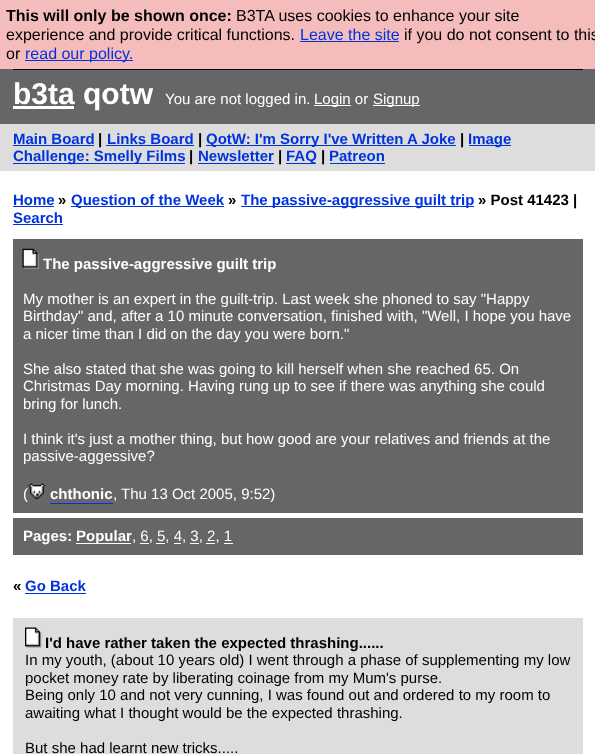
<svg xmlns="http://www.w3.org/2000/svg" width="595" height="754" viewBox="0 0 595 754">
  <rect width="100%" height="100%" fill="#ffffff"/>
  <rect x="0" y="69" width="595" height="55" fill="#666666"/>
  <rect x="13.5" y="13.5" width="569" height="56" fill="none" stroke="#000000"/>
  <rect x="0" y="0" width="595" height="69" fill="#f5bcbc"/>
  <text x="6" y="21" font-family="Liberation Sans" font-size="16" font-weight="bold" fill="#000000">This will only be shown once:</text>
  <text x="236" y="21" font-family="Liberation Sans" font-size="16" fill="#000000">B3TA uses cookies to enhance your site</text>
  <text x="6" y="40" font-family="Liberation Sans" font-size="16" fill="#000000">experience and provide critical functions.</text>
  <text x="300" y="40" font-family="Liberation Sans" font-size="16" fill="#0033dd">Leave the site</text>
  <rect x="300" y="41" width="99" height="1" fill="#0033dd"/>
  <text x="404" y="40" font-family="Liberation Sans" font-size="16" fill="#000000">if you do not consent to this</text>
  <text x="6" y="59" font-family="Liberation Sans" font-size="16" fill="#000000">or</text>
  <rect x="25" y="60" width="108" height="1" fill="#0033dd"/>
  <text x="25" y="59" font-family="Liberation Sans" font-size="16" fill="#0033dd">read our policy.</text>
  <rect x="13" y="106" width="61" height="3" fill="#ffffff"/>
  <text x="13" y="104" font-family="Liberation Sans" font-size="30" font-weight="bold" fill="#ffffff">b3ta qotw</text>
  <text x="165" y="104" font-family="Liberation Sans" font-size="15" fill="#ffffff">You are not logged in.</text>
  <rect x="314" y="105" width="37" height="1" fill="#ffffff"/>
  <text x="314" y="104" font-family="Liberation Sans" font-size="15" fill="#ffffff">Login or</text>
  <rect x="373" y="105" width="47" height="1" fill="#ffffff"/>
  <text x="373" y="104" font-family="Liberation Sans" font-size="15" fill="#ffffff">Signup</text>
  <rect x="0" y="124" width="595" height="47" fill="#dddddd"/>
  <text x="13" y="144" font-family="Liberation Sans" font-size="15" font-weight="bold" fill="#0033dd">Main Board</text>
  <rect x="13" y="145" width="81" height="1" fill="#0033dd"/>
  <text x="98" y="144" font-family="Liberation Sans" font-size="15" font-weight="bold" fill="#000000">|</text>
  <text x="107" y="144" font-family="Liberation Sans" font-size="15" font-weight="bold" fill="#0033dd">Links Board</text>
  <rect x="106" y="145" width="88" height="1" fill="#0033dd"/>
  <text x="198" y="144" font-family="Liberation Sans" font-size="15" font-weight="bold" fill="#000000">|</text>
  <rect x="206" y="145" width="250" height="1" fill="#0033dd"/>
  <text x="206" y="144" font-family="Liberation Sans" font-size="15" font-weight="bold" fill="#0033dd">QotW: I'm Sorry I've Written A Joke</text>
  <text x="460" y="144" font-family="Liberation Sans" font-size="15" font-weight="bold" fill="#000000">|</text>
  <rect x="469" y="145" width="42" height="1" fill="#0033dd"/>
  <text x="468" y="144" font-family="Liberation Sans" font-size="15" font-weight="bold" fill="#0033dd">Image</text>
  <rect x="13" y="163" width="172" height="1" fill="#0033dd"/>
  <text x="13" y="161" font-family="Liberation Sans" font-size="15" font-weight="bold" fill="#0033dd">Challenge: Smelly Films</text>
  <text x="189" y="161" font-family="Liberation Sans" font-size="15" font-weight="bold" fill="#000000">|</text>
  <text x="198" y="161" font-family="Liberation Sans" font-size="15" font-weight="bold" fill="#0033dd">Newsletter</text>
  <rect x="198" y="163" width="76" height="1" fill="#0033dd"/>
  <text x="278" y="161" font-family="Liberation Sans" font-size="15" font-weight="bold" fill="#000000">|</text>
  <rect x="286" y="163" width="30" height="1" fill="#0033dd"/>
  <text x="286" y="161" font-family="Liberation Sans" font-size="15" font-weight="bold" fill="#0033dd">FAQ</text>
  <text x="321" y="161" font-family="Liberation Sans" font-size="15" font-weight="bold" fill="#000000">|</text>
  <text x="329" y="161" font-family="Liberation Sans" font-size="15" font-weight="bold" fill="#0033dd">Patreon</text>
  <rect x="330" y="163" width="55" height="1" fill="#0033dd"/>
  <text x="13" y="205" font-family="Liberation Sans" font-size="15" font-weight="bold" fill="#0033dd">Home</text>
  <rect x="13" y="206" width="41" height="1" fill="#0033dd"/>
  <text x="58" y="205" font-family="Liberation Sans" font-size="15" font-weight="bold" fill="#000000">»</text>
  <rect x="71" y="206" width="153" height="1" fill="#0033dd"/>
  <text x="71" y="205" font-family="Liberation Sans" font-size="15" font-weight="bold" fill="#0033dd">Question of the Week</text>
  <text x="228" y="205" font-family="Liberation Sans" font-size="15" font-weight="bold" fill="#000000">»</text>
  <rect x="241" y="206" width="233" height="1" fill="#0033dd"/>
  <text x="241" y="205" font-family="Liberation Sans" font-size="15" font-weight="bold" fill="#0033dd">The passive-aggressive guilt trip</text>
  <text x="478" y="205" font-family="Liberation Sans" font-size="15" font-weight="bold" fill="#000000">» Post 41423 |</text>
  <text x="13" y="223" font-family="Liberation Sans" font-size="15" font-weight="bold" fill="#0033dd">Search</text>
  <rect x="13" y="224" width="50" height="1" fill="#0033dd"/>
  <rect x="13" y="239" width="570" height="274" fill="#666666"/>
  <image x="22" y="248" width="17" height="21" href="img1.png"/>
  <text x="43" y="269" font-family="Liberation Sans" font-size="15" font-weight="bold" fill="#ffffff">The passive-aggressive guilt trip</text>
  <text x="23" y="304" font-family="Liberation Sans" font-size="15" fill="#ffffff">My mother is an expert in the guilt-trip. Last week she phoned to say "Happy</text>
  <text x="23" y="321" font-family="Liberation Sans" font-size="15" fill="#ffffff">Birthday" and, after a 10 minute conversation, finished with, "Well, I hope you have</text>
  <text x="23" y="339" font-family="Liberation Sans" font-size="15" fill="#ffffff">a nicer time than I did on the day you were born."</text>
  <text x="23" y="374" font-family="Liberation Sans" font-size="15" fill="#ffffff">She also stated that she was going to kill herself when she reached 65. On</text>
  <text x="23" y="391" font-family="Liberation Sans" font-size="15" fill="#ffffff">Christmas Day morning. Having rung up to see if there was anything she could</text>
  <text x="23" y="409" font-family="Liberation Sans" font-size="15" fill="#ffffff">bring for lunch.</text>
  <text x="23" y="444" font-family="Liberation Sans" font-size="15" fill="#ffffff">I think it's just a mother thing, but how good are your relatives and friends at the</text>
  <text x="23" y="461" font-family="Liberation Sans" font-size="15" fill="#ffffff">passive-aggessive?</text>
  <text x="23" y="499" font-family="Liberation Sans" font-size="15" fill="#ffffff">(</text>
  <image x="28" y="483" width="18" height="16" href="img2.png"/>
  <text x="50" y="499" font-family="Liberation Sans" font-size="15" font-weight="bold" fill="#ffffff">chthonic</text>
  <rect x="50" y="503" width="63" height="1" fill="#0033dd"/>
  <text x="113" y="499" font-family="Liberation Sans" font-size="15" fill="#ffffff">, Thu 13 Oct 2005, 9:52)</text>
  <rect x="13" y="518" width="570" height="37" fill="#666666"/>
  <text x="23" y="541" font-family="Liberation Sans" font-size="15" font-weight="bold" fill="#ffffff">Pages:</text>
  <rect x="76" y="543" width="55" height="1" fill="#ffffff"/>
  <text x="76" y="541" font-family="Liberation Sans" font-size="15" font-weight="bold" fill="#ffffff">Popular</text>
  <text x="132" y="541" font-family="Liberation Sans" font-size="15" fill="#ffffff">, 6, 5, 4, 3, 2, 1</text>
  <rect x="140" y="543" width="9" height="1" fill="#ffffff"/>
  <rect x="156" y="543" width="9" height="1" fill="#ffffff"/>
  <rect x="174" y="543" width="7" height="1" fill="#ffffff"/>
  <rect x="190" y="543" width="9" height="1" fill="#ffffff"/>
  <rect x="206" y="543" width="9" height="1" fill="#ffffff"/>
  <rect x="224" y="543" width="9" height="1" fill="#ffffff"/>
  <text x="13" y="591" font-family="Liberation Sans" font-size="15" font-weight="bold" fill="#000000">«</text>
  <text x="25" y="591" font-family="Liberation Sans" font-size="15" font-weight="bold" fill="#0033dd">Go Back</text>
  <rect x="25" y="593" width="61" height="1" fill="#0033dd"/>
  <rect x="13" y="618" width="570" height="136" fill="#dddddd"/>
  <image x="25" y="627" width="17" height="21" href="img3.png"/>
  <text x="45" y="648" font-family="Liberation Sans" font-size="15" font-weight="bold" fill="#000000">I'd have rather taken the expected thrashing......</text>
  <text x="25" y="665" font-family="Liberation Sans" font-size="15" fill="#000000">In my youth, (about 10 years old) I went through a phase of supplementing my low</text>
  <text x="25" y="683" font-family="Liberation Sans" font-size="15" fill="#000000">pocket money rate by liberating coinage from my Mum's purse.</text>
  <text x="25" y="700" font-family="Liberation Sans" font-size="15" fill="#000000">Being only 10 and not very cunning, I was found out and ordered to my room to</text>
  <text x="25" y="718" font-family="Liberation Sans" font-size="15" fill="#000000">awaiting what I thought would be the expected thrashing.</text>
  <text x="25" y="753" font-family="Liberation Sans" font-size="15" fill="#000000">But she had learnt new tricks.....</text>
</svg>
